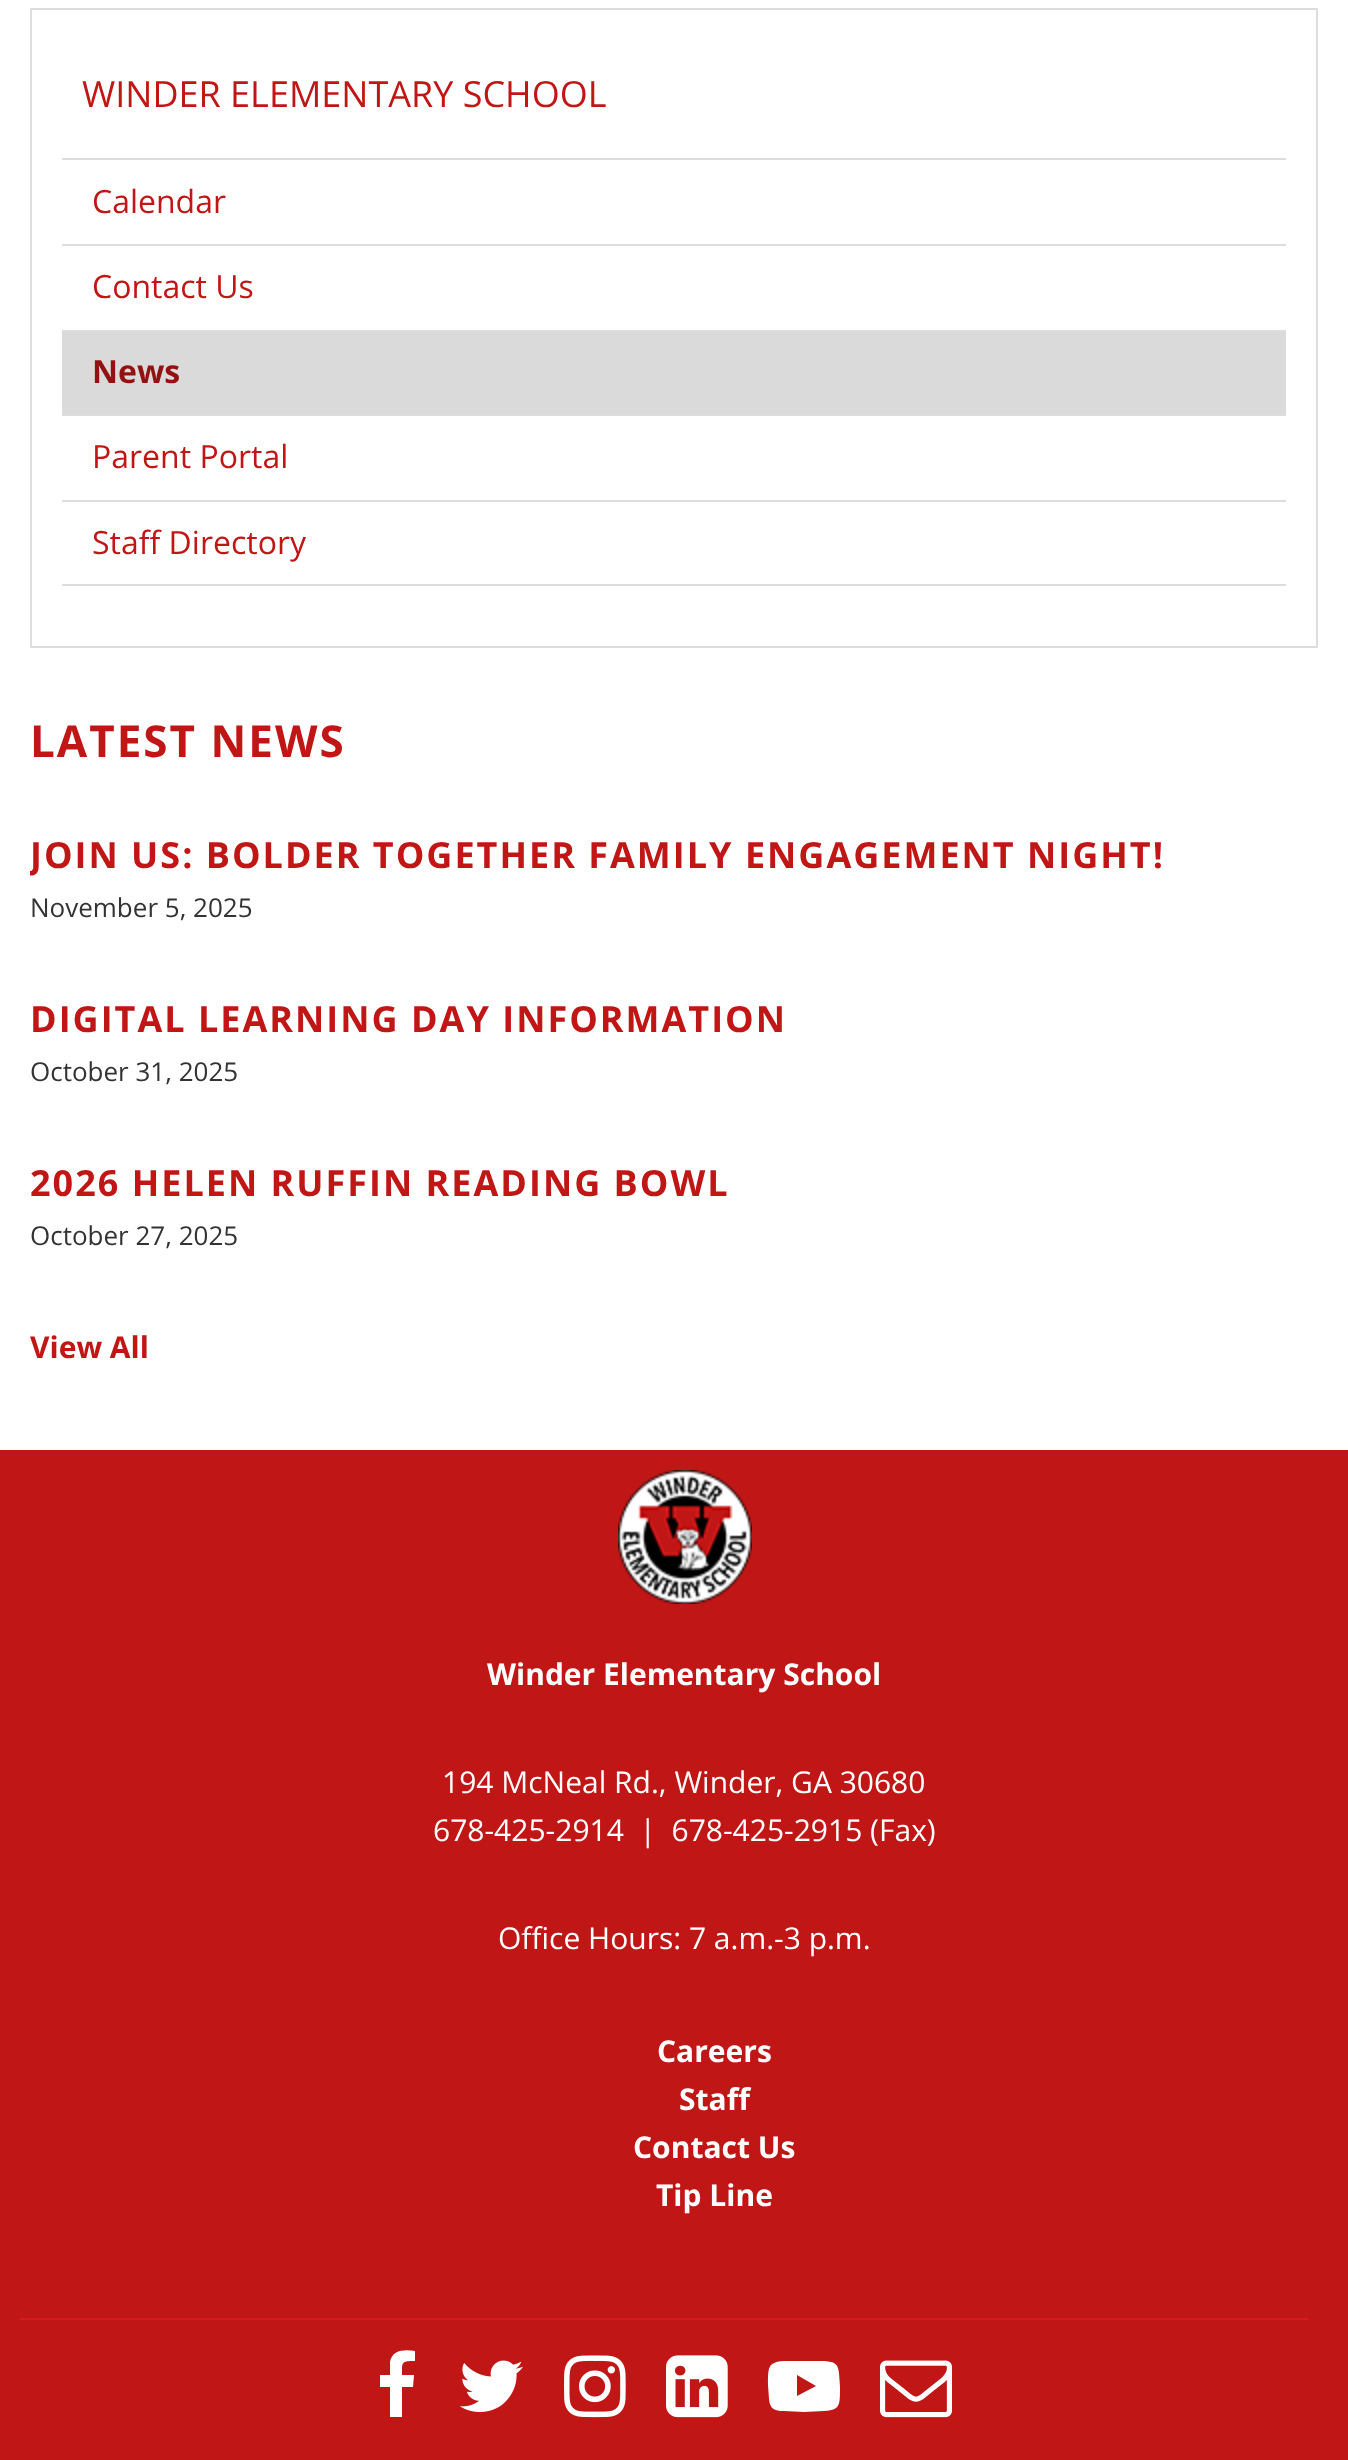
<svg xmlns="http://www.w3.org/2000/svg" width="1348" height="2460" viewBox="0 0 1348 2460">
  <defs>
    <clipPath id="clip1"><rect x="30" y="830" width="1288" height="104"/></clipPath>
  </defs>
  <rect width="100%" height="100%" fill="#ffffff"/>
  <rect x="31" y="9" width="1286" height="638" fill="none" stroke="#dddddd" stroke-width="2"/>
  <text x="82" y="107" font-family="Open Sans" font-size="36" fill="#c11616">WINDER ELEMENTARY SCHOOL</text>
  <rect x="62" y="158" width="1224" height="2" fill="#dddddd"/>
  <rect x="62" y="244" width="1224" height="2" fill="#dddddd"/>
  <text x="92" y="213" font-family="Open Sans" font-size="32" fill="#c11616">Calendar</text>
  <rect x="62" y="330" width="1224" height="2" fill="#dddddd"/>
  <text x="92" y="298" font-family="Open Sans" font-size="32" fill="#c11616">Contact Us</text>
  <rect x="62" y="414" width="1224" height="2" fill="#dddddd"/>
  <rect x="62" y="332" width="1224" height="82" fill="#dadada"/>
  <text x="92" y="383" font-family="Open Sans" font-size="32" font-weight="bold" fill="#931111">News</text>
  <rect x="62" y="500" width="1224" height="2" fill="#dddddd"/>
  <text x="92" y="468" font-family="Open Sans" font-size="32" fill="#c11616">Parent Portal</text>
  <rect x="62" y="584" width="1224" height="2" fill="#dddddd"/>
  <text x="92" y="554" font-family="Open Sans" font-size="32" fill="#c11616">Staff Directory</text>
  <text x="30" y="757" font-family="Open Sans" font-size="44" font-weight="bold" letter-spacing="2" fill="#c11616">LATEST NEWS</text>
  <g clip-path="url(#clip1)">
    <text x="30" y="868" font-family="Open Sans" font-size="36" font-weight="bold" letter-spacing="2" fill="#c11616">JOIN US: BOLDER TOGETHER FAMILY ENGAGEMENT NIGHT!</text>
  </g>
  <text x="30" y="917" font-family="Open Sans" font-size="26" fill="#333333">November 5, 2025</text>
  <text x="30" y="1032" font-family="Open Sans" font-size="36" font-weight="bold" letter-spacing="2" fill="#c11616">DIGITAL LEARNING DAY INFORMATION</text>
  <text x="30" y="1081" font-family="Open Sans" font-size="26" fill="#333333">October 31, 2025</text>
  <text x="30" y="1196" font-family="Open Sans" font-size="36" font-weight="bold" letter-spacing="2" fill="#c11616">2026 HELEN RUFFIN READING BOWL</text>
  <text x="30" y="1245" font-family="Open Sans" font-size="26" fill="#333333">October 27, 2025</text>
  <text x="30" y="1358" font-family="Open Sans" font-size="30" font-weight="bold" fill="#c11616">View All</text>
  <rect x="0" y="1450" width="1348" height="1010" fill="#c11616"/>
  <image x="618" y="1470" width="134" height="134" href="img1.png"/>
  <text x="487" y="1685" font-family="Open Sans" font-size="30" font-weight="bold" fill="#ffffff">Winder Elementary School</text>
  <text x="442" y="1793" font-family="Open Sans" font-size="30" fill="#ffffff">194 McNeal Rd., Winder, GA 30680</text>
  <text x="433" y="1841" font-family="Open Sans" font-size="30" fill="#ffffff" xml:space="preserve">678-425-2914  |  678-425-2915 (Fax)</text>
  <text x="498" y="1949" font-family="Open Sans" font-size="30" fill="#ffffff">Office Hours: 7 a.m.-3 p.m.</text>
  <text x="657" y="2062" font-family="Open Sans" font-size="30" font-weight="bold" fill="#ffffff">Careers</text>
  <text x="679" y="2110" font-family="Open Sans" font-size="30" font-weight="bold" fill="#ffffff">Staff</text>
  <text x="633" y="2158" font-family="Open Sans" font-size="30" font-weight="bold" fill="#ffffff">Contact Us</text>
  <text x="656" y="2206" font-family="Open Sans" font-size="30" font-weight="bold" fill="#ffffff">Tip Line</text>
  <rect x="20" y="2318" width="1288" height="2" fill="#dc1919"/>
  <path d="M415 2351V2361C401 2361 402 2362 402 2375H414L413 2387H402V2417H390V2387H380V2375H390V2362C392 2350 404 2349 415 2351Z" fill="#ffffff"/>
  <image x="460" y="2360" width="63" height="52" href="img2.png"/>
  <image x="564" y="2355" width="62" height="63" href="img3.png"/>
  <image x="666" y="2355" width="62" height="63" href="img4.png"/>
  <path d="M797 2396L816 2386L797 2375ZM804 2361H825C834 2362 838 2363 839 2373L840 2387C840 2406 840 2410 824 2411L804 2412L784 2411C774 2411 770 2409 769 2399L768 2385C768 2367 768 2362 784 2361Z" fill="#ffffff"/>
  <image x="880" y="2360" width="72" height="58" href="img5.png"/>
</svg>
